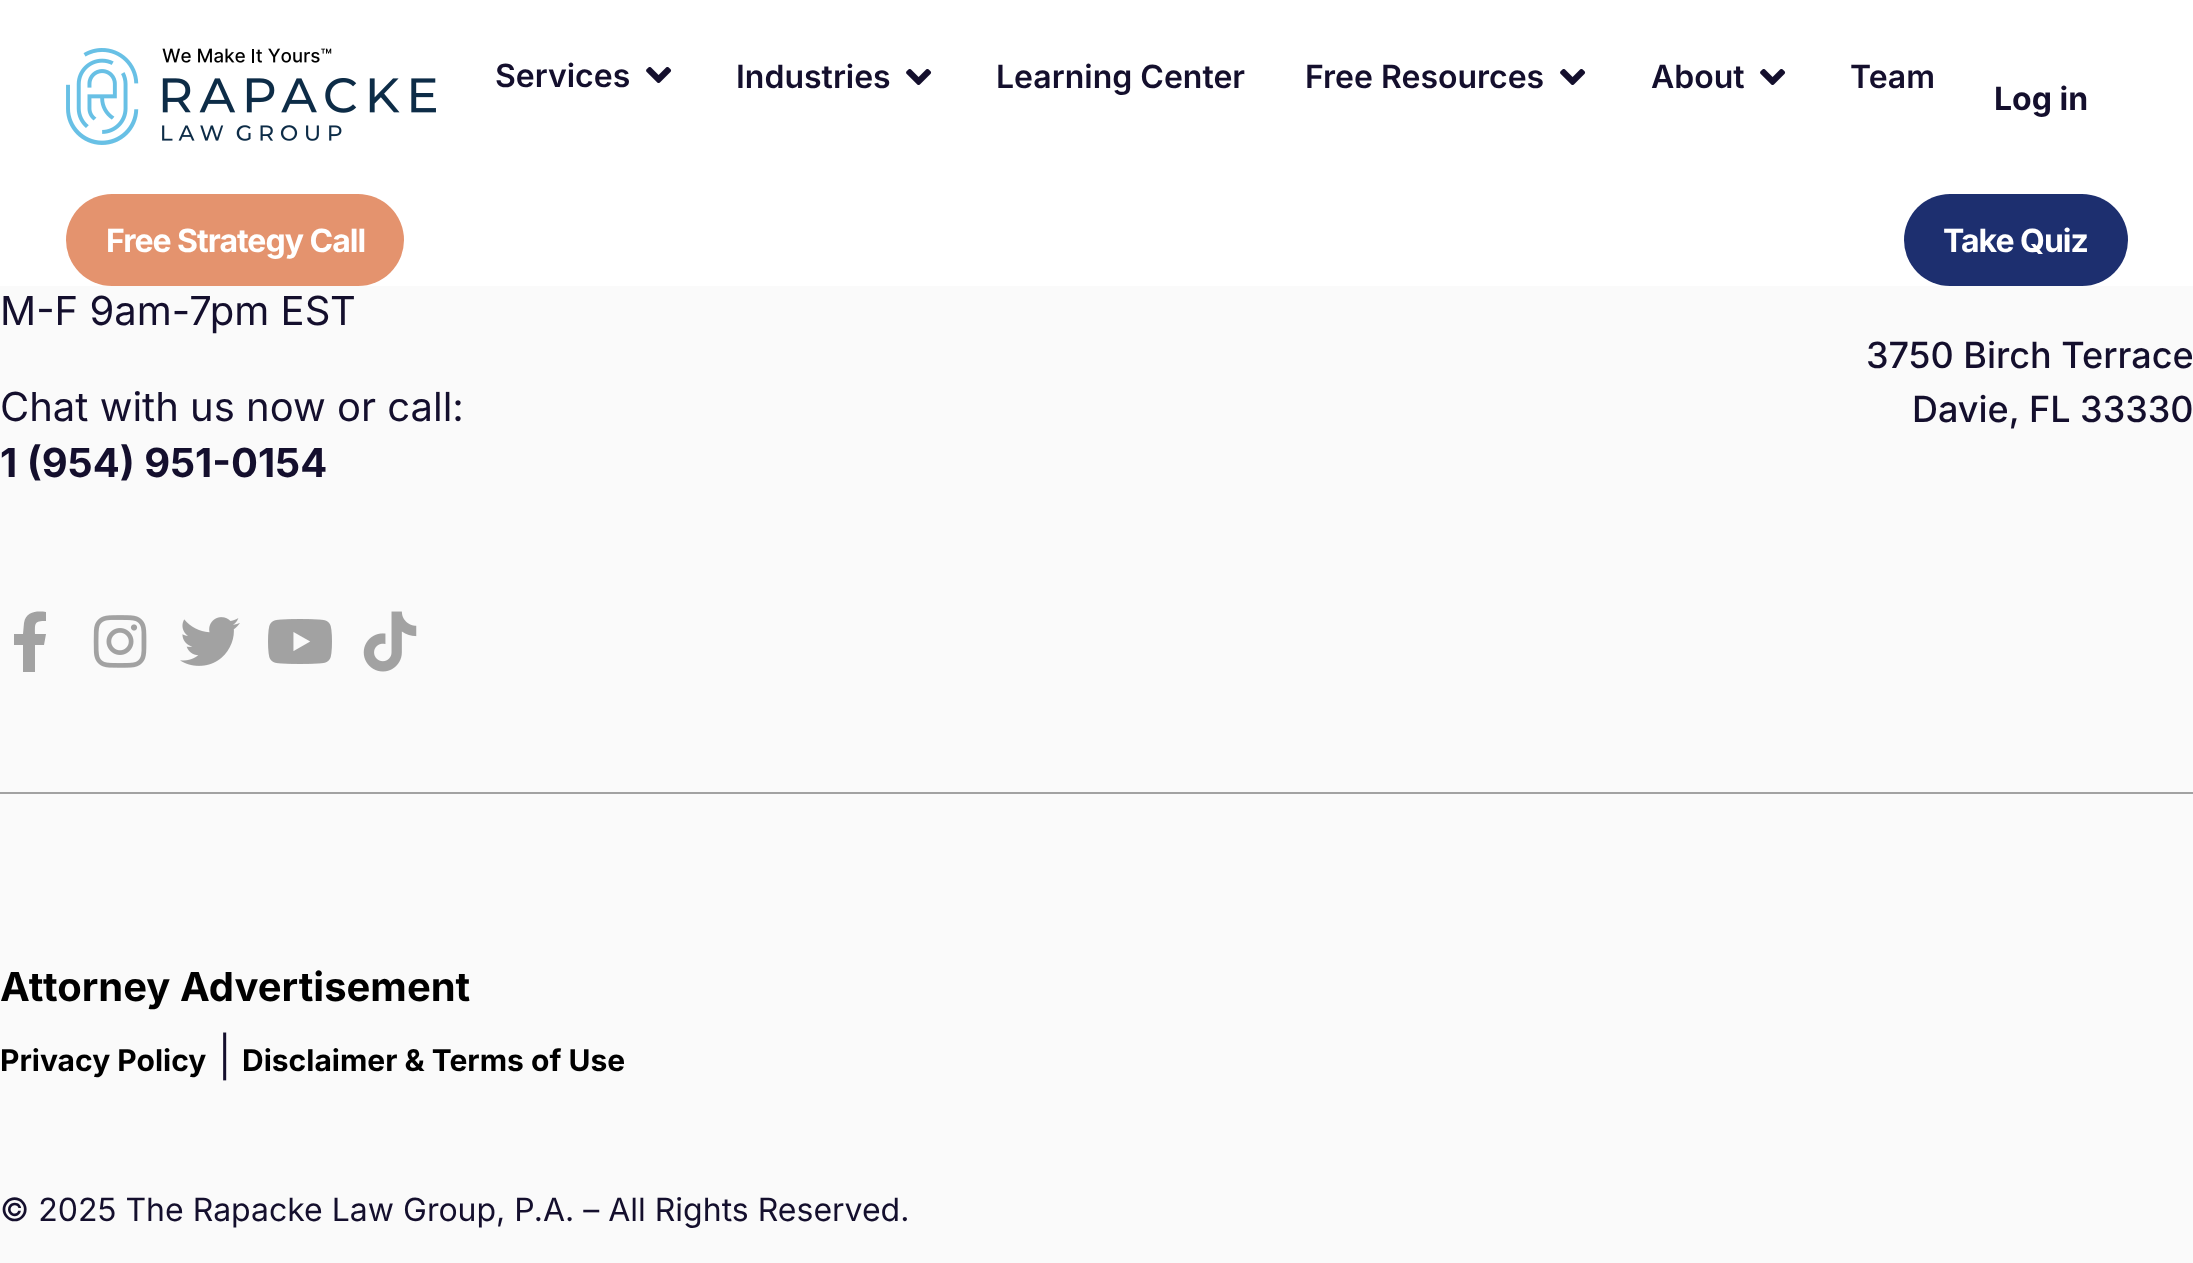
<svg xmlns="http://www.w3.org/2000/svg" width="2193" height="1263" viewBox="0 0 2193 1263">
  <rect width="100%" height="100%" fill="#fafafa"/>
  <rect x="0" y="0" width="2193" height="286" fill="#ffffff"/>
  <image x="66" y="48" width="370" height="97" href="img1.png"/>
  <text x="495" y="87" font-family="Inter" font-size="32" font-weight="600" fill="#140f2d">Services</text>
  <image x="646" y="67" width="26" height="16" href="img2.png"/>
  <text x="736" y="88" font-family="Inter" font-size="32" font-weight="600" fill="#140f2d">Industries</text>
  <image x="906" y="69" width="26" height="16" href="img2.png"/>
  <text x="996" y="88" font-family="Inter" font-size="32" font-weight="600" fill="#140f2d">Learning Center</text>
  <text x="1305" y="88" font-family="Inter" font-size="32" font-weight="600" fill="#140f2d">Free Resources</text>
  <image x="1560" y="69" width="26" height="16" href="img2.png"/>
  <text x="1651" y="88" font-family="Inter" font-size="32" font-weight="600" fill="#140f2d">About</text>
  <image x="1760" y="69" width="26" height="16" href="img2.png"/>
  <text x="1850" y="88" font-family="Inter" font-size="32" font-weight="600" fill="#140f2d">Team</text>
  <text x="1994" y="110" font-family="Inter" font-size="32" font-weight="bold" fill="#140f2d">Log in</text>
  <rect x="66" y="194" width="338" height="92" rx="46" fill="#e4936e"/>
  <text x="106" y="252" font-family="Inter" font-size="32" font-weight="bold" letter-spacing="-1" fill="#ffffff">Free Strategy Call</text>
  <rect x="1904" y="194" width="224" height="92" rx="46" fill="#1d2f6f"/>
  <text x="1943" y="252" font-family="Inter" font-size="32" font-weight="bold" letter-spacing="-1" fill="#ffffff">Take Quiz</text>
  <rect x="0" y="792" width="2193" height="2" fill="#a2a2a2"/>
  <text x="0" y="325" font-family="Inter" font-size="40" fill="#140f2d">M-F 9am-7pm EST</text>
  <text x="0" y="421" font-family="Inter" font-size="40" fill="#140f2d">Chat with us now or call:</text>
  <text x="0" y="477" font-family="Inter" font-size="40" font-weight="bold" fill="#140f2d">1 (954) 951-0154</text>
  <path d="M44 645H35V672H23V645H14V634H23L24 623C26 611 37 611 46 612V621C34 621 35 623 35 634H46Z" fill="#a2a2a2"/>
  <image x="93" y="615" width="54" height="53" href="img3.png"/>
  <image x="180" y="617" width="60" height="49" href="img4.png"/>
  <image x="268" y="619" width="64" height="45" href="img5.png"/>
  <image x="363" y="611" width="54" height="61" href="img6.png"/>
  <text x="1866" y="368" font-family="Inter" font-size="36" font-weight="500" fill="#140f2d">3750 Birch Terrace</text>
  <text x="1912" y="422" font-family="Inter" font-size="36" font-weight="500" fill="#140f2d">Davie, FL 33330</text>
  <text x="0" y="1001" font-family="Inter" font-size="40" font-weight="bold" fill="#000000">Attorney Advertisement</text>
  <text x="0" y="1071" font-family="Inter" font-size="30" font-weight="bold" fill="#000000">Privacy Policy</text>
  <text x="218" y="1071" font-family="Inter" font-size="40" fill="#140f2d">|</text>
  <text x="242" y="1071" font-family="Inter" font-size="30" font-weight="bold" fill="#000000">Disclaimer &amp; Terms of Use</text>
  <text x="0" y="1221" font-family="Inter" font-size="32" fill="#140f2d">© 2025 The Rapacke Law Group, P.A. – All Rights Reserved.</text>
</svg>
